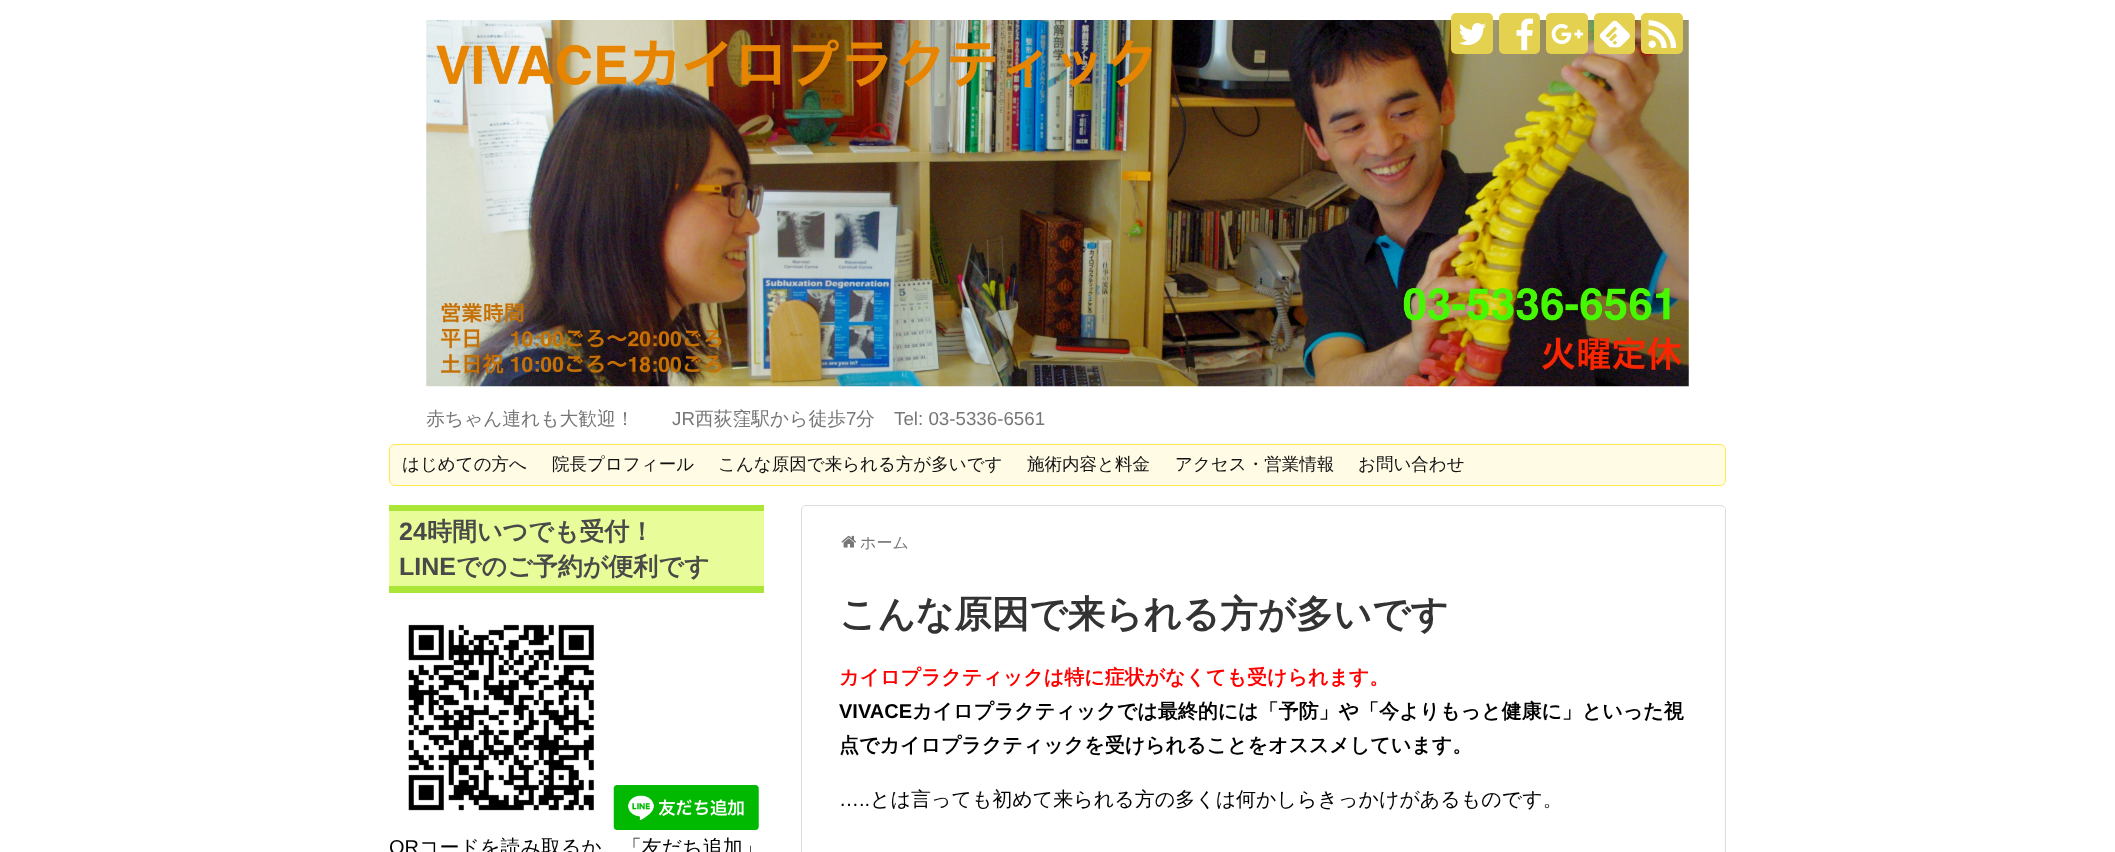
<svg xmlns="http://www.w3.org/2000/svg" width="2115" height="852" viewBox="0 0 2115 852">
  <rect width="100%" height="100%" fill="#ffffff"/>
  <image x="426" y="20" width="1263" height="367" href="img6.png"/>
  <rect x="1451" y="13" width="42" height="41" rx="5" fill="#e5d150"/>
  <image x="1459" y="23" width="27" height="23" href="img1.png"/>
  <rect x="1499" y="13" width="41" height="41" rx="5" fill="#e5d150"/>
  <image x="1516" y="18" width="17" height="33" href="img2.png"/>
  <rect x="1546" y="13" width="42" height="41" rx="5" fill="#e5d150"/>
  <image x="1551" y="24" width="33" height="20" href="img3.png"/>
  <rect x="1594" y="13" width="41" height="41" rx="5" fill="#e5d150"/>
  <image x="1599" y="20" width="31" height="28" href="img4.png"/>
  <rect x="1641" y="13" width="42" height="41" rx="5" fill="#e5d150"/>
  <image x="1648" y="20" width="29" height="28" href="img5.png"/>
  <text x="426" y="425" font-family="WenQuanYi Zen Hei" font-size="18.75" font-weight="500" fill="#777777">赤ちゃん連れも大歓迎！</text>
  <text x="672" y="425" font-family="Liberation Sans" font-size="18.75" fill="#777777">JR</text>
  <text x="695" y="425" font-family="WenQuanYi Zen Hei" font-size="18.75" font-weight="500" fill="#777777">西荻窪駅から徒歩</text>
  <text x="846" y="425" font-family="Liberation Sans" font-size="18.75" fill="#777777">7</text>
  <text x="856" y="425" font-family="WenQuanYi Zen Hei" font-size="18.75" font-weight="500" fill="#777777">分</text>
  <text x="894" y="425" font-family="Liberation Sans" font-size="18.75" fill="#777777">Tel: 03-5336-6561</text>
  <rect x="389.5" y="444.5" width="1336" height="41" rx="5.5" fill="#fffbe5" stroke="#ffe74c"/>
  <text x="402" y="470" font-family="WenQuanYi Zen Hei" font-size="17.5" font-weight="500" fill="#111111">はじめての方へ</text>
  <text x="552" y="470" font-family="WenQuanYi Zen Hei" font-size="17.5" font-weight="500" fill="#111111">院長プロフィール</text>
  <text x="718" y="470" font-family="WenQuanYi Zen Hei" font-size="17.5" font-weight="500" fill="#111111">こんな原因で来られる方が多いです</text>
  <text x="1027" y="470" font-family="WenQuanYi Zen Hei" font-size="17.5" font-weight="500" fill="#111111">施術内容と料金</text>
  <text x="1175" y="470" font-family="WenQuanYi Zen Hei" font-size="17.5" font-weight="500" fill="#111111">アクセス・営業情報</text>
  <text x="1358" y="470" font-family="WenQuanYi Zen Hei" font-size="17.5" font-weight="500" fill="#111111">お問い合わせ</text>
  <rect x="389" y="511" width="375" height="75" fill="#e8fc99"/>
  <rect x="389" y="505" width="375" height="6" fill="#abe537"/>
  <rect x="389" y="586" width="375" height="7" fill="#abe537"/>
  <text x="399" y="540" font-family="Liberation Sans" font-size="25" font-weight="bold" fill="#494949">24</text>
  <text x="427" y="540" font-family="WenQuanYi Zen Hei" font-size="25" font-weight="bold" fill="#494949">時間いつでも受付！</text>
  <text x="399" y="575" font-family="Liberation Sans" font-size="25" font-weight="bold" fill="#494949">LINE</text>
  <text x="456" y="575" font-family="WenQuanYi Zen Hei" font-size="25" font-weight="bold" fill="#494949">でのご予約が便利です</text>
  <image x="408" y="624" width="186" height="187" href="img7.png"/>
  <image x="613" y="785" width="146" height="45" href="img8.png"/>
  <text x="389" y="854" font-family="Liberation Sans" font-size="20" fill="#000000">QR</text>
  <text x="419" y="854" font-family="WenQuanYi Zen Hei" font-size="20" font-weight="500" fill="#000000">コードを読み取るか、「友だち追加」</text>
  <rect x="801.5" y="505.5" width="924" height="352" rx="4.5" fill="none" stroke="#dddddd"/>
  <image x="841" y="535" width="15" height="13" href="img9.png"/>
  <text x="860" y="548" font-family="WenQuanYi Zen Hei" font-size="16" font-weight="500" fill="#777777">ホーム</text>
  <text x="839" y="627" font-family="WenQuanYi Zen Hei" font-size="37.5" font-weight="bold" fill="#333333">こんな原因で来られる方が多いです</text>
  <text x="839" y="684" font-family="WenQuanYi Zen Hei" font-size="20" font-weight="bold" fill="#ff0000">カイロプラクティックは特に症状がなくても受けられます。</text>
  <text x="839" y="718" font-family="Liberation Sans" font-size="20" font-weight="bold" fill="#000000">VIVACE</text>
  <text x="912" y="718" font-family="WenQuanYi Zen Hei" font-size="20" font-weight="bold" fill="#000000">カイロプラクティックでは最終的には「予防」や「今よりもっと健康に」といった視</text>
  <text x="839" y="752" font-family="WenQuanYi Zen Hei" font-size="20" font-weight="bold" fill="#000000">点でカイロプラクティックを受けられることをオススメしています。</text>
  <text x="839" y="806" font-family="Liberation Sans" font-size="20" fill="#000000">…..</text>
  <text x="870" y="806" font-family="WenQuanYi Zen Hei" font-size="20" font-weight="500" fill="#000000">とは言っても初めて来られる方の多くは何かしらきっかけがあるものです。</text>
</svg>
